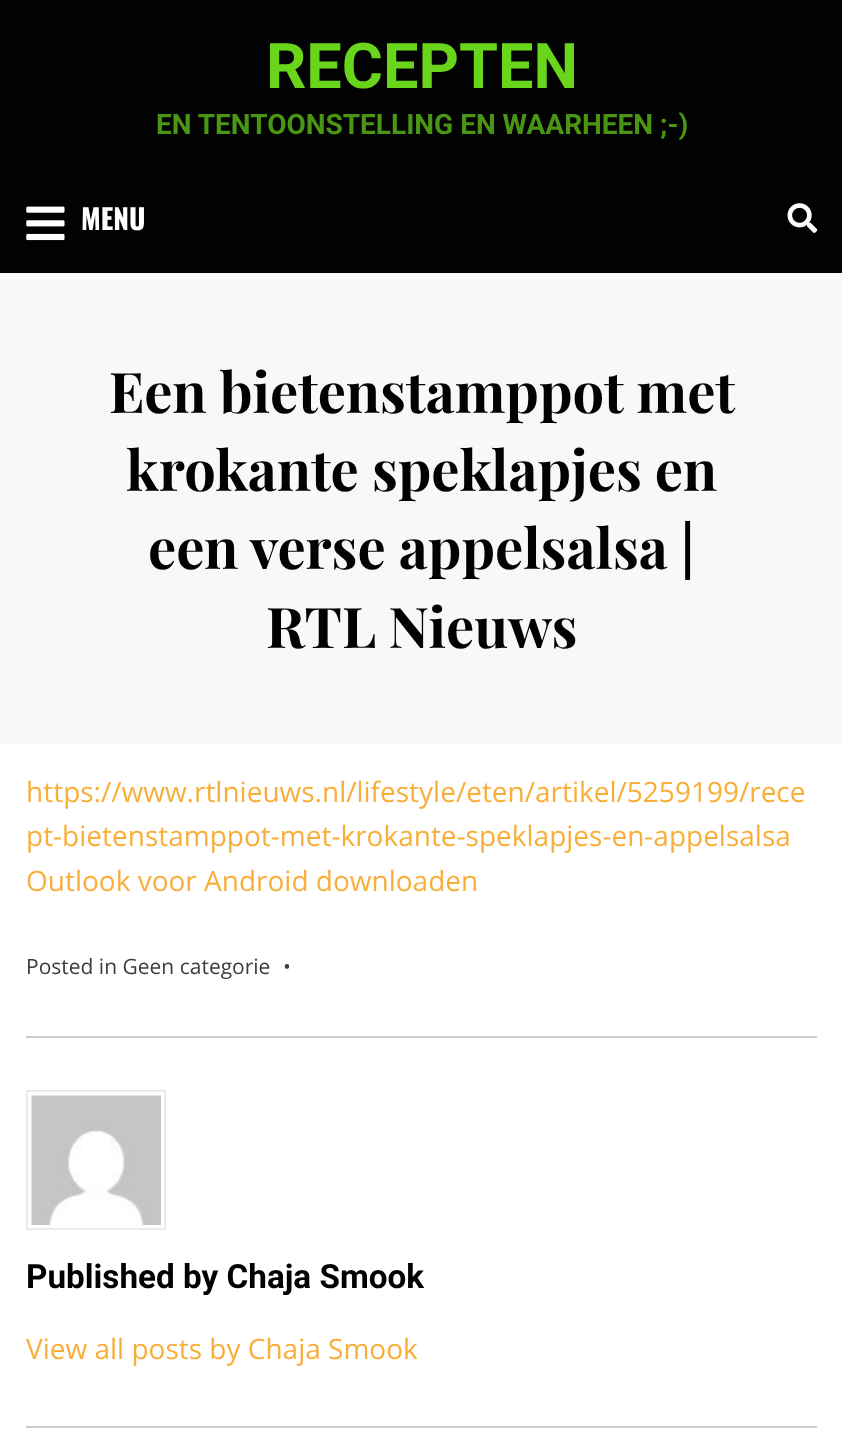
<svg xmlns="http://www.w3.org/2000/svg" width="842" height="1433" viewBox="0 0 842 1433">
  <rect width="100%" height="100%" fill="#ffffff"/>
  <rect x="0" y="0" width="842" height="273" fill="#020202"/>
  <text x="266" y="88" font-family="Roboto" font-size="63" font-weight="bold" fill="#69d61b">RECEPTEN</text>
  <text x="156" y="134" font-family="Roboto" font-size="28" font-weight="bold" fill="#4a9614">EN TENTOONSTELLING EN WAARHEEN ;-)</text>
  <image x="26" y="206" width="39" height="35" href="img1.png"/>
  <text x="81" y="230" font-family="Oswald" font-size="28" font-weight="bold" fill="#ffffff">MENU</text>
  <image x="787" y="203" width="31" height="30" href="img2.png"/>
  <rect x="0" y="273" width="842" height="471" fill="#f8f8f8"/>
  <text x="109" y="413" font-family="Playfair Display" font-size="56" font-weight="bold" fill="#020202">Een bietenstamppot met</text>
  <text x="126" y="491" font-family="Playfair Display" font-size="56" font-weight="bold" fill="#020202">krokante speklapjes en</text>
  <text x="148" y="569" font-family="Playfair Display" font-size="56" font-weight="bold" fill="#020202">een verse appelsalsa |</text>
  <text x="266" y="648" font-family="Playfair Display" font-size="56" font-weight="bold" fill="#020202">RTL Nieuws</text>
  <text x="26" y="802" font-family="Open Sans" font-size="28" fill="#f9ae39">https://www.rtlnieuws.nl/lifestyle/eten/artikel/5259199/rece</text>
  <text x="26" y="846" font-family="Open Sans" font-size="28" fill="#f9ae39">pt-bietenstamppot-met-krokante-speklapjes-en-appelsalsa</text>
  <text x="26" y="891" font-family="Open Sans" font-size="28" fill="#f9ae39">Outlook voor Android downloaden</text>
  <text x="26" y="974" font-family="Open Sans" font-size="21" fill="#3d3d3d">Posted in Geen categorie</text>
  <text x="283" y="974" font-family="Open Sans" font-size="21" fill="#3d3d3d">•</text>
  <rect x="26" y="1036" width="791" height="2" fill="#cccccc"/>
  <rect x="27" y="1091" width="138" height="138" fill="none" stroke="#ebebeb" stroke-width="2"/>
  <image x="31" y="1095" width="130" height="130" href="img3.png"/>
  <text x="26" y="1288" font-family="Roboto" font-size="33.25" font-weight="bold" fill="#020202">Published by Chaja Smook</text>
  <text x="26" y="1359" font-family="Open Sans" font-size="28" fill="#f9ae39">View all posts by Chaja Smook</text>
  <rect x="26" y="1426" width="791" height="2" fill="#cccccc"/>
</svg>
